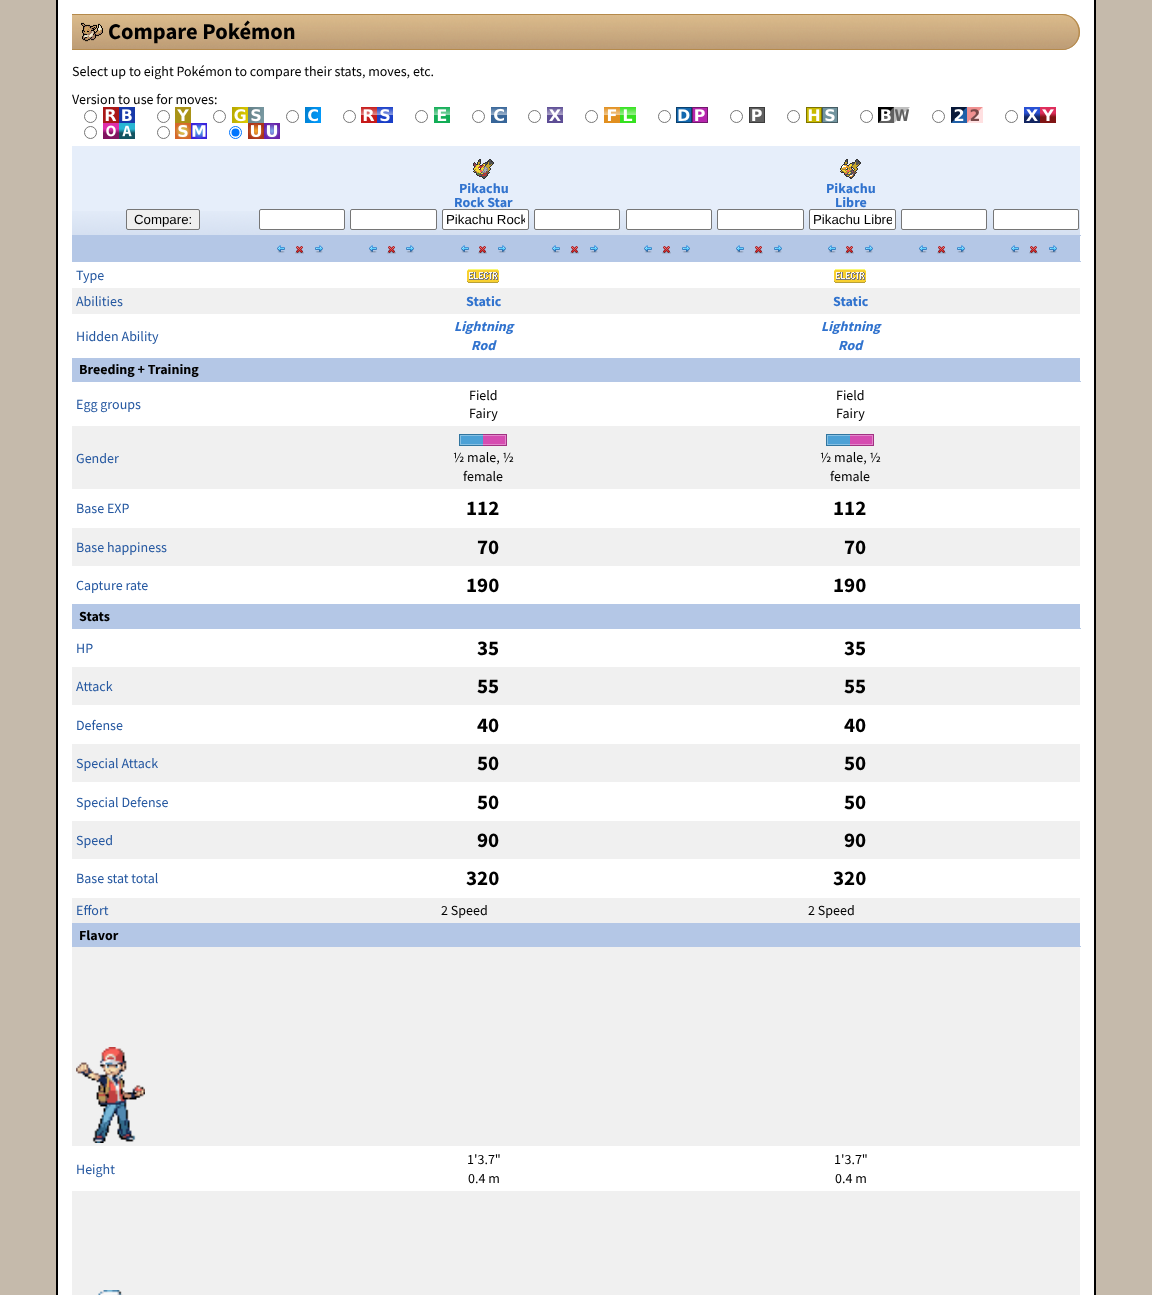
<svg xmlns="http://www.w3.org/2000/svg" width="1152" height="1295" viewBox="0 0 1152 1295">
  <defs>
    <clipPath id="clip1"><rect x="446" y="212" width="79" height="15"/></clipPath>
    <clipPath id="clip2"><rect x="813" y="212" width="79" height="15"/></clipPath>
  </defs>
  <rect width="100%" height="100%" fill="#c5baab"/>
  <rect x="58" y="0" width="1036" height="1295" fill="#ffffff"/>
  <rect x="1094" y="0" width="2" height="1295" fill="#000000"/>
  <rect x="56" y="0" width="2" height="1295" fill="#000000"/>
  <image x="72" y="14" width="1008" height="36" href="img1.png"/>
  <path d="M72 14H1062C1072 14 1080 22 1080 32C1080 42 1072 50 1062 50H72ZM72 15H1062C1082 15 1085 45 1065 49H72Z" fill="#b58a4b" fill-rule="evenodd"/>
  <text x="108" y="39" font-family="Source Sans Pro" font-size="22.5" font-weight="bold" fill="#000000">Compare Pokémon</text>
  <text x="72" y="76" font-family="Source Sans Pro" font-size="14" fill="#000000">Select up to eight Pokémon to compare their stats, moves, etc.</text>
  <text x="72" y="104" font-family="Source Sans Pro" font-size="14" fill="#000000">Version to use for moves:</text>
  <circle cx="90.5" cy="116.5" r="6" fill="none" stroke="#767676"/>
  <image x="103" y="107" width="16" height="16" href="img2.png"/>
  <image x="119" y="107" width="16" height="16" href="img3.png"/>
  <circle cx="163.5" cy="116.5" r="6" fill="none" stroke="#767676"/>
  <image x="175" y="107" width="16" height="16" href="img4.png"/>
  <circle cx="219.5" cy="116.5" r="6" fill="none" stroke="#767676"/>
  <image x="232" y="107" width="16" height="16" href="img5.png"/>
  <image x="248" y="107" width="16" height="16" href="img6.png"/>
  <circle cx="292.5" cy="116.5" r="6" fill="none" stroke="#767676"/>
  <image x="305" y="107" width="16" height="16" href="img7.png"/>
  <circle cx="349.5" cy="116.5" r="6" fill="none" stroke="#767676"/>
  <image x="361" y="107" width="16" height="16" href="img8.png"/>
  <image x="377" y="107" width="16" height="16" href="img9.png"/>
  <circle cx="421.5" cy="116.5" r="6" fill="none" stroke="#767676"/>
  <image x="434" y="107" width="16" height="16" href="img10.png"/>
  <circle cx="478.5" cy="116.5" r="6" fill="none" stroke="#767676"/>
  <image x="491" y="107" width="16" height="16" href="img11.png"/>
  <circle cx="534.5" cy="116.5" r="6" fill="none" stroke="#767676"/>
  <image x="547" y="107" width="16" height="16" href="img12.png"/>
  <circle cx="591.5" cy="116.5" r="6" fill="none" stroke="#767676"/>
  <image x="604" y="107" width="16" height="16" href="img13.png"/>
  <image x="620" y="107" width="16" height="16" href="img14.png"/>
  <circle cx="664.5" cy="116.5" r="6" fill="none" stroke="#767676"/>
  <image x="676" y="107" width="16" height="16" href="img15.png"/>
  <image x="692" y="107" width="16" height="16" href="img16.png"/>
  <circle cx="736.5" cy="116.5" r="6" fill="none" stroke="#767676"/>
  <image x="749" y="107" width="16" height="16" href="img17.png"/>
  <circle cx="793.5" cy="116.5" r="6" fill="none" stroke="#767676"/>
  <image x="806" y="107" width="16" height="16" href="img18.png"/>
  <image x="822" y="107" width="16" height="16" href="img19.png"/>
  <circle cx="866.5" cy="116.5" r="6" fill="none" stroke="#767676"/>
  <image x="878" y="107" width="16" height="16" href="img20.png"/>
  <image x="894" y="107" width="16" height="16" href="img21.png"/>
  <circle cx="938.5" cy="116.5" r="6" fill="none" stroke="#767676"/>
  <image x="951" y="107" width="16" height="16" href="img22.png"/>
  <image x="967" y="107" width="16" height="16" href="img23.png"/>
  <circle cx="1011.5" cy="116.5" r="6" fill="none" stroke="#767676"/>
  <image x="1024" y="107" width="16" height="16" href="img24.png"/>
  <image x="1040" y="107" width="16" height="16" href="img25.png"/>
  <circle cx="90.5" cy="132.5" r="6" fill="none" stroke="#767676"/>
  <image x="103" y="123" width="16" height="16" href="img26.png"/>
  <image x="119" y="123" width="16" height="16" href="img27.png"/>
  <circle cx="163.5" cy="132.5" r="6" fill="none" stroke="#767676"/>
  <image x="175" y="123" width="16" height="16" href="img28.png"/>
  <image x="191" y="123" width="16" height="16" href="img29.png"/>
  <circle cx="235.5" cy="132.5" r="6" fill="none" stroke="#0075ff"/>
  <circle cx="235.5" cy="132.5" r="4" fill="#0075ff"/>
  <image x="248" y="123" width="16" height="16" href="img30.png"/>
  <image x="264" y="123" width="16" height="16" href="img31.png"/>
  <rect x="72" y="146" width="1008" height="65" fill="#e6eefa"/>
  <image x="72" y="211" width="182" height="24" href="img32.png"/>
  <rect x="126.5" y="209.5" width="73" height="20" rx="1.5" fill="#efefef" stroke="#767676"/>
  <text x="134" y="224" font-family="Liberation Sans" font-size="13.25" fill="#000000">Compare:</text>
  <image x="254" y="211" width="92" height="24" href="img33.png"/>
  <rect x="259.5" y="209.5" width="85" height="20" rx="1.5" fill="#ffffff" stroke="#767676"/>
  <image x="346" y="211" width="92" height="24" href="img33.png"/>
  <rect x="350.5" y="209.5" width="86" height="20" rx="1.5" fill="#ffffff" stroke="#767676"/>
  <image x="438" y="211" width="91" height="24" href="img34.png"/>
  <image x="473" y="159" width="21" height="20" href="img35.png"/>
  <text x="459" y="193" font-family="Source Sans Pro" font-size="14" font-weight="bold" fill="#3173ce">Pikachu</text>
  <text x="454" y="207" font-family="Source Sans Pro" font-size="14" font-weight="bold" fill="#3173ce">Rock Star</text>
  <rect x="442.5" y="209.5" width="86" height="20" rx="1.5" fill="#ffffff" stroke="#767676"/>
  <g clip-path="url(#clip1)">
    <text x="446" y="224" font-family="Liberation Sans" font-size="13.25" fill="#000000">Pikachu Rock</text>
  </g>
  <image x="529" y="211" width="92" height="24" href="img33.png"/>
  <rect x="534.5" y="209.5" width="85" height="20" rx="1.5" fill="#ffffff" stroke="#767676"/>
  <image x="621" y="211" width="92" height="24" href="img33.png"/>
  <rect x="626.5" y="209.5" width="85" height="20" rx="1.5" fill="#ffffff" stroke="#767676"/>
  <image x="713" y="211" width="92" height="24" href="img33.png"/>
  <rect x="717.5" y="209.5" width="86" height="20" rx="1.5" fill="#ffffff" stroke="#767676"/>
  <image x="805" y="211" width="91" height="24" href="img34.png"/>
  <image x="840" y="159" width="21" height="20" href="img36.png"/>
  <text x="826" y="193" font-family="Source Sans Pro" font-size="14" font-weight="bold" fill="#3173ce">Pikachu</text>
  <text x="835" y="207" font-family="Source Sans Pro" font-size="14" font-weight="bold" fill="#3173ce">Libre</text>
  <rect x="809.5" y="209.5" width="86" height="20" rx="1.5" fill="#ffffff" stroke="#767676"/>
  <g clip-path="url(#clip2)">
    <text x="813" y="224" font-family="Liberation Sans" font-size="13.25" fill="#000000">Pikachu Libre</text>
  </g>
  <image x="896" y="211" width="92" height="24" href="img33.png"/>
  <rect x="901.5" y="209.5" width="85" height="20" rx="1.5" fill="#ffffff" stroke="#767676"/>
  <image x="988" y="211" width="92" height="24" href="img33.png"/>
  <rect x="988" y="235" width="93" height="1" fill="#b4c7e6"/>
  <rect x="993.5" y="209.5" width="85" height="20" rx="1.5" fill="#ffffff" stroke="#767676"/>
  <rect x="72" y="235" width="916" height="27" fill="#b4c7e6"/>
  <rect x="988" y="236" width="92" height="25" fill="#b4c7e6"/>
  <rect x="988" y="261" width="93" height="1" fill="#b4c7e6"/>
  <image x="1011" y="245" width="8" height="8" href="img37.png"/>
  <image x="1029" y="246" width="9" height="8" href="img38.png"/>
  <image x="1049" y="245" width="8" height="8" href="img39.png"/>
  <image x="277" y="245" width="8" height="8" href="img37.png"/>
  <image x="295" y="246" width="9" height="8" href="img38.png"/>
  <image x="315" y="245" width="8" height="8" href="img39.png"/>
  <image x="369" y="245" width="8" height="8" href="img37.png"/>
  <image x="387" y="246" width="9" height="8" href="img38.png"/>
  <image x="406" y="245" width="8" height="8" href="img39.png"/>
  <image x="461" y="245" width="8" height="8" href="img37.png"/>
  <image x="478" y="246" width="9" height="8" href="img38.png"/>
  <image x="498" y="245" width="8" height="8" href="img39.png"/>
  <image x="552" y="245" width="8" height="8" href="img37.png"/>
  <image x="570" y="246" width="9" height="8" href="img38.png"/>
  <image x="590" y="245" width="8" height="8" href="img39.png"/>
  <image x="644" y="245" width="8" height="8" href="img37.png"/>
  <image x="662" y="246" width="9" height="8" href="img38.png"/>
  <image x="682" y="245" width="8" height="8" href="img39.png"/>
  <image x="736" y="245" width="8" height="8" href="img37.png"/>
  <image x="754" y="246" width="9" height="8" href="img38.png"/>
  <image x="774" y="245" width="8" height="8" href="img39.png"/>
  <image x="828" y="245" width="8" height="8" href="img37.png"/>
  <image x="845" y="246" width="9" height="8" href="img38.png"/>
  <image x="865" y="245" width="8" height="8" href="img39.png"/>
  <image x="919" y="245" width="8" height="8" href="img37.png"/>
  <image x="937" y="246" width="9" height="8" href="img38.png"/>
  <image x="957" y="245" width="8" height="8" href="img39.png"/>
  <text x="76" y="280" font-family="Source Sans Pro" font-size="14" fill="#2457a0">Type</text>
  <image x="467" y="269" width="32" height="14" href="img40.png"/>
  <image x="834" y="269" width="32" height="14" href="img40.png"/>
  <rect x="72" y="288" width="1008" height="26" fill="#f0f0f0"/>
  <text x="76" y="306" font-family="Source Sans Pro" font-size="14" fill="#2457a0">Abilities</text>
  <text x="466" y="306" font-family="Source Sans Pro" font-size="14" font-weight="bold" fill="#3173ce">Static</text>
  <text x="833" y="306" font-family="Source Sans Pro" font-size="14" font-weight="bold" fill="#3173ce">Static</text>
  <text x="76" y="341" font-family="Source Sans Pro" font-size="14" fill="#2457a0">Hidden Ability</text>
  <text x="454" y="331" font-family="Source Sans Pro" font-size="14" font-weight="bold" font-style="italic" fill="#3173ce">Lightning</text>
  <text x="471" y="350" font-family="Source Sans Pro" font-size="14" font-weight="bold" font-style="italic" fill="#3173ce">Rod</text>
  <text x="821" y="331" font-family="Source Sans Pro" font-size="14" font-weight="bold" font-style="italic" fill="#3173ce">Lightning</text>
  <text x="838" y="350" font-family="Source Sans Pro" font-size="14" font-weight="bold" font-style="italic" fill="#3173ce">Rod</text>
  <rect x="72" y="358" width="1008" height="23" fill="#b4c7e6"/>
  <rect x="72" y="381" width="1009" height="1" fill="#b4c7e6"/>
  <text x="79" y="374" font-family="Source Sans Pro" font-size="14" font-weight="bold" fill="#000000">Breeding + Training</text>
  <text x="76" y="409" font-family="Source Sans Pro" font-size="14" fill="#2457a0">Egg groups</text>
  <text x="469" y="400" font-family="Source Sans Pro" font-size="14" fill="#000000">Field</text>
  <text x="469" y="418" font-family="Source Sans Pro" font-size="14" fill="#000000">Fairy</text>
  <text x="836" y="400" font-family="Source Sans Pro" font-size="14" fill="#000000">Field</text>
  <text x="836" y="418" font-family="Source Sans Pro" font-size="14" fill="#000000">Fairy</text>
  <rect x="72" y="426" width="1008" height="63" fill="#f0f0f0"/>
  <text x="76" y="463" font-family="Source Sans Pro" font-size="14" fill="#2457a0">Gender</text>
  <image x="459" y="434" width="48" height="12" href="img41.png"/>
  <text x="453" y="462" font-family="Source Sans Pro" font-size="14" fill="#000000">½ male, ½</text>
  <text x="463" y="481" font-family="Source Sans Pro" font-size="14" fill="#000000">female</text>
  <image x="826" y="434" width="48" height="12" href="img41.png"/>
  <text x="820" y="462" font-family="Source Sans Pro" font-size="14" fill="#000000">½ male, ½</text>
  <text x="830" y="481" font-family="Source Sans Pro" font-size="14" fill="#000000">female</text>
  <text x="76" y="513" font-family="Source Sans Pro" font-size="14" fill="#2457a0">Base EXP</text>
  <text x="466" y="515" font-family="Source Sans Pro" font-size="21" font-weight="bold" fill="#000000">112</text>
  <text x="833" y="515" font-family="Source Sans Pro" font-size="21" font-weight="bold" fill="#000000">112</text>
  <rect x="72" y="528" width="1008" height="38" fill="#f0f0f0"/>
  <text x="76" y="552" font-family="Source Sans Pro" font-size="14" fill="#2457a0">Base happiness</text>
  <text x="477" y="554" font-family="Source Sans Pro" font-size="21" font-weight="bold" fill="#000000">70</text>
  <text x="844" y="554" font-family="Source Sans Pro" font-size="21" font-weight="bold" fill="#000000">70</text>
  <text x="76" y="590" font-family="Source Sans Pro" font-size="14" fill="#2457a0">Capture rate</text>
  <text x="466" y="592" font-family="Source Sans Pro" font-size="21" font-weight="bold" fill="#000000">190</text>
  <text x="833" y="592" font-family="Source Sans Pro" font-size="21" font-weight="bold" fill="#000000">190</text>
  <rect x="72" y="604" width="1008" height="24" fill="#b4c7e6"/>
  <rect x="72" y="628" width="1009" height="1" fill="#b4c7e6"/>
  <text x="79" y="621" font-family="Source Sans Pro" font-size="14" font-weight="bold" fill="#000000">Stats</text>
  <text x="76" y="653" font-family="Source Sans Pro" font-size="14" fill="#2457a0">HP</text>
  <text x="477" y="655" font-family="Source Sans Pro" font-size="21" font-weight="bold" fill="#000000">35</text>
  <text x="844" y="655" font-family="Source Sans Pro" font-size="21" font-weight="bold" fill="#000000">35</text>
  <rect x="72" y="667" width="1008" height="38" fill="#f0f0f0"/>
  <text x="76" y="691" font-family="Source Sans Pro" font-size="14" fill="#2457a0">Attack</text>
  <text x="477" y="693" font-family="Source Sans Pro" font-size="21" font-weight="bold" fill="#000000">55</text>
  <text x="844" y="693" font-family="Source Sans Pro" font-size="21" font-weight="bold" fill="#000000">55</text>
  <text x="76" y="730" font-family="Source Sans Pro" font-size="14" fill="#2457a0">Defense</text>
  <text x="477" y="732" font-family="Source Sans Pro" font-size="21" font-weight="bold" fill="#000000">40</text>
  <text x="844" y="732" font-family="Source Sans Pro" font-size="21" font-weight="bold" fill="#000000">40</text>
  <rect x="72" y="744" width="1008" height="38" fill="#f0f0f0"/>
  <text x="76" y="768" font-family="Source Sans Pro" font-size="14" fill="#2457a0">Special Attack</text>
  <text x="477" y="770" font-family="Source Sans Pro" font-size="21" font-weight="bold" fill="#000000">50</text>
  <text x="844" y="770" font-family="Source Sans Pro" font-size="21" font-weight="bold" fill="#000000">50</text>
  <text x="76" y="807" font-family="Source Sans Pro" font-size="14" fill="#2457a0">Special Defense</text>
  <text x="477" y="809" font-family="Source Sans Pro" font-size="21" font-weight="bold" fill="#000000">50</text>
  <text x="844" y="809" font-family="Source Sans Pro" font-size="21" font-weight="bold" fill="#000000">50</text>
  <rect x="72" y="821" width="1008" height="38" fill="#f0f0f0"/>
  <text x="76" y="845" font-family="Source Sans Pro" font-size="14" fill="#2457a0">Speed</text>
  <text x="477" y="847" font-family="Source Sans Pro" font-size="21" font-weight="bold" fill="#000000">90</text>
  <text x="844" y="847" font-family="Source Sans Pro" font-size="21" font-weight="bold" fill="#000000">90</text>
  <text x="76" y="883" font-family="Source Sans Pro" font-size="14" fill="#2457a0">Base stat total</text>
  <text x="466" y="885" font-family="Source Sans Pro" font-size="21" font-weight="bold" fill="#000000">320</text>
  <text x="833" y="885" font-family="Source Sans Pro" font-size="21" font-weight="bold" fill="#000000">320</text>
  <rect x="72" y="898" width="1008" height="25" fill="#f0f0f0"/>
  <text x="76" y="915" font-family="Source Sans Pro" font-size="14" fill="#2457a0">Effort</text>
  <text x="441" y="915" font-family="Source Sans Pro" font-size="14" fill="#000000">2 Speed</text>
  <text x="808" y="915" font-family="Source Sans Pro" font-size="14" fill="#000000">2 Speed</text>
  <rect x="72" y="923" width="1008" height="23" fill="#b4c7e6"/>
  <rect x="72" y="946" width="1009" height="1" fill="#b4c7e6"/>
  <text x="79" y="940" font-family="Source Sans Pro" font-size="14" font-weight="bold" fill="#000000">Flavor</text>
  <rect x="72" y="947" width="1008" height="199" fill="#f0f0f0"/>
  <image x="76" y="1047" width="69" height="96" href="img42.png"/>
  <text x="76" y="1174" font-family="Source Sans Pro" font-size="14" fill="#2457a0">Height</text>
  <text x="467" y="1164" font-family="Source Sans Pro" font-size="14" fill="#000000">1'3.7"</text>
  <text x="468" y="1183" font-family="Source Sans Pro" font-size="14" fill="#000000">0.4 m</text>
  <text x="834" y="1164" font-family="Source Sans Pro" font-size="14" fill="#000000">1'3.7"</text>
  <text x="835" y="1183" font-family="Source Sans Pro" font-size="14" fill="#000000">0.4 m</text>
  <rect x="72" y="1191" width="1008" height="104" fill="#f0f0f0"/>
  <image x="98" y="1290" width="25" height="5" href="img43.png"/>
</svg>
